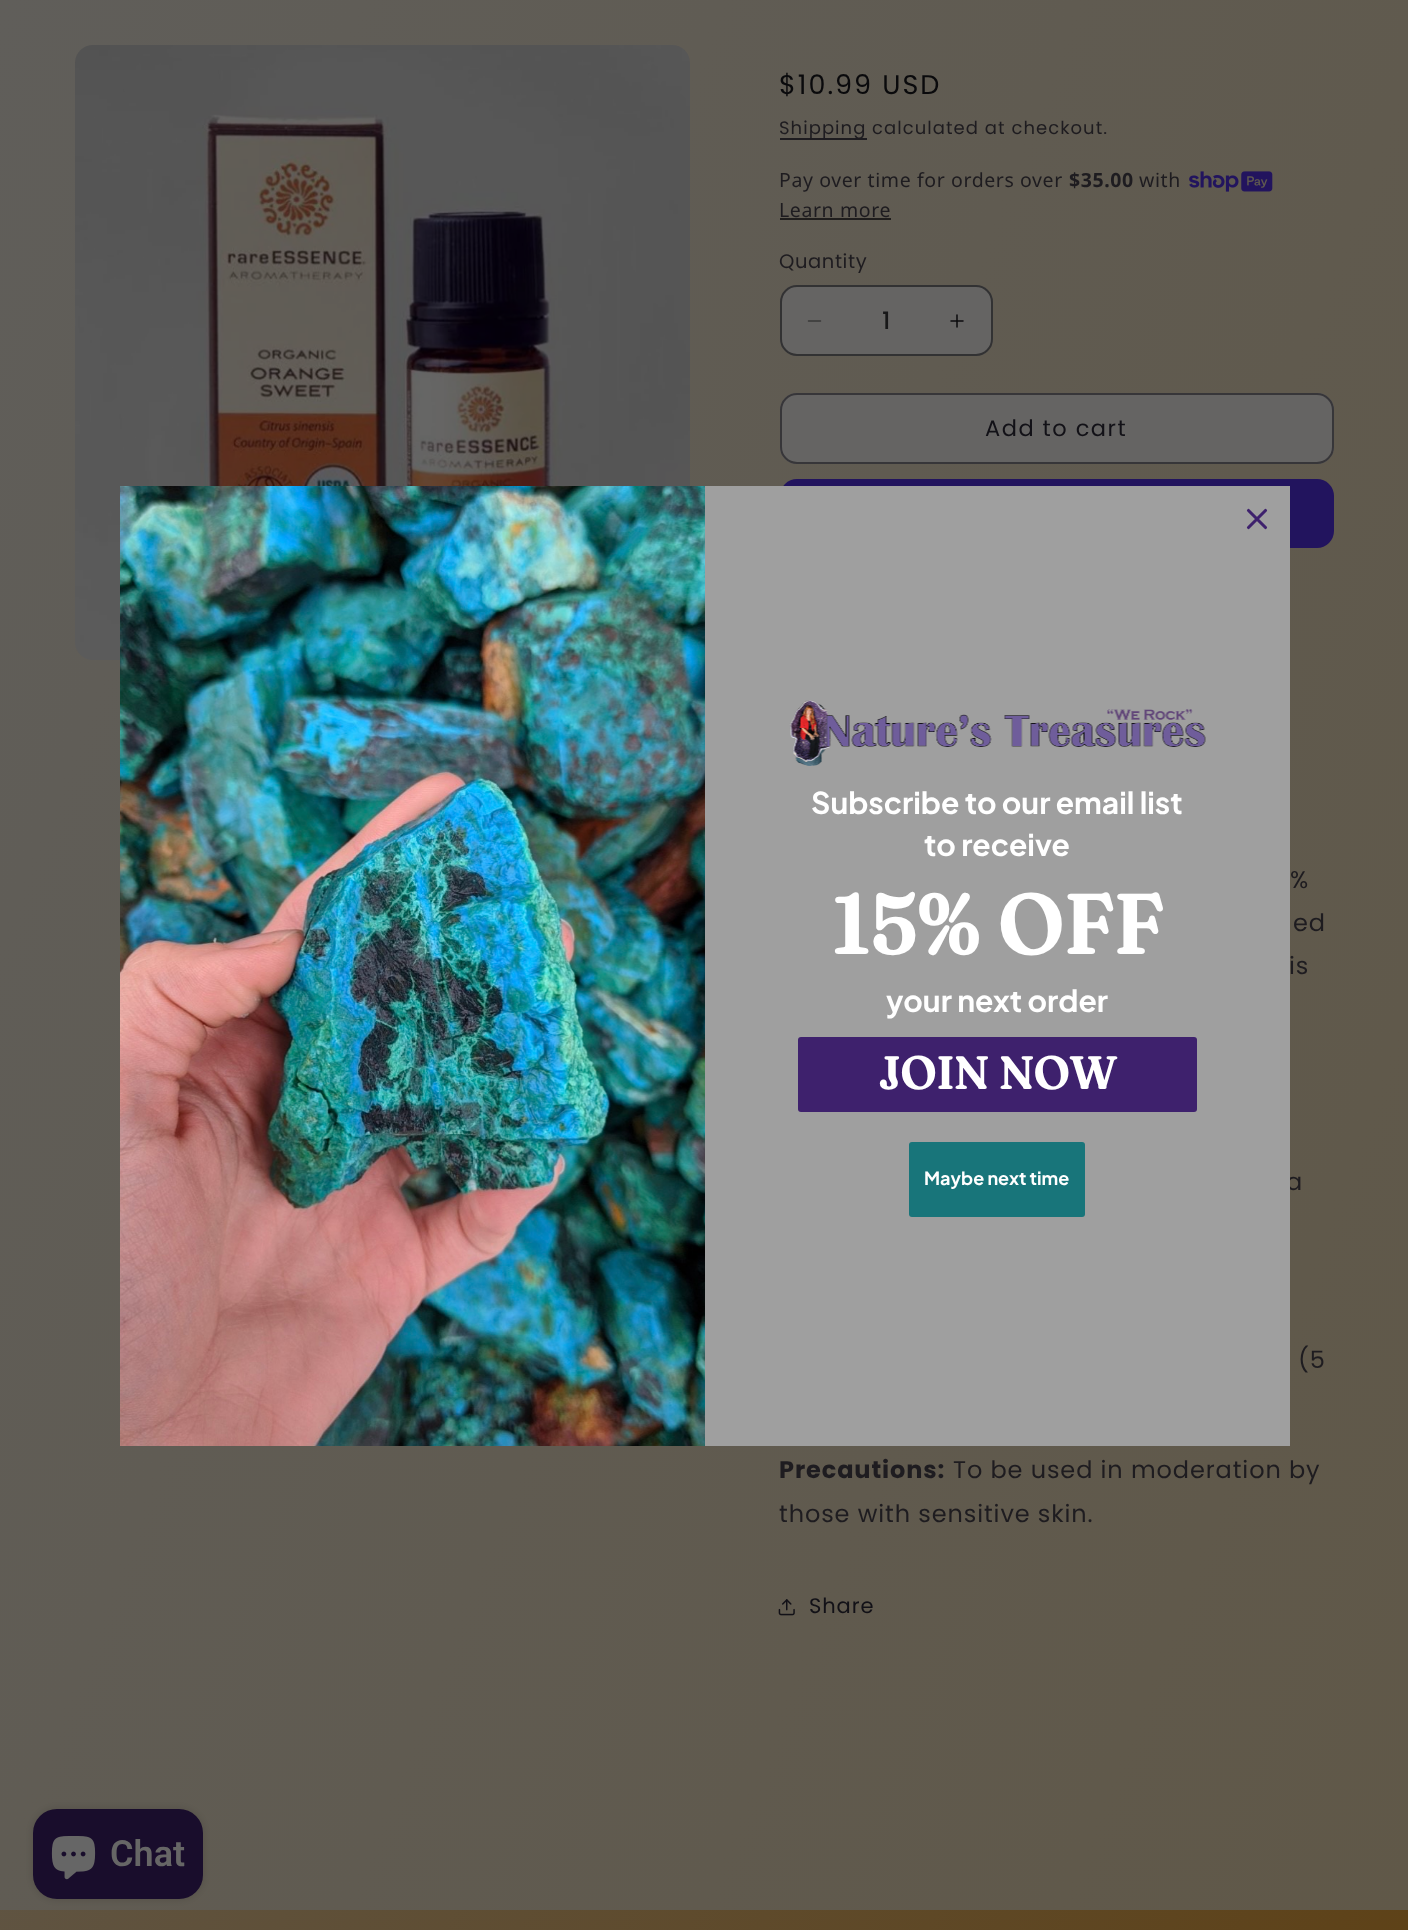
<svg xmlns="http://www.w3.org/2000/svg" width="1408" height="1930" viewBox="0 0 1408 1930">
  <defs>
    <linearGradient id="g1" gradientUnits="userSpaceOnUse" x1="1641" y1="1325" x2="-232" y2="606"><stop offset="0" stop-color="#605848"/><stop offset="1" stop-color="#605e5a"/></linearGradient>
    <linearGradient id="g2" gradientUnits="userSpaceOnUse" x1="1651" y1="1387" x2="-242" y2="544"><stop offset="0" stop-color="#5e4218"/><stop offset="1" stop-color="#605e5a"/></linearGradient>
    <filter id="blur1" x="-50%" y="-200%" width="200%" height="500%"><feGaussianBlur stdDeviation="4"/></filter>
  </defs>
  <rect width="100%" height="100%" fill="#ffffff"/>
  <rect x="0" y="0" width="1408" height="1910" fill="url(#g1)"/>
  <image x="75" y="45" width="615" height="615" href="img1.png"/>
  <text x="779" y="94" font-family="Poppins" font-size="27" letter-spacing="2" fill="#0a0a0c">$10.99 USD</text>
  <rect x="780" y="138" width="87" height="2" fill="#1e1c20"/>
  <text x="779" y="134" font-family="Poppins" font-size="18" letter-spacing="1.05" fill="#1e1c20">Shipping</text>
  <text x="872" y="134" font-family="Poppins" font-size="18" letter-spacing="1.05" fill="#1e1c20">calculated at checkout.</text>
  <text x="779" y="187" font-family="Noto Sans" font-size="19.5" letter-spacing="0.6" fill="#1e1c20">Pay over time for orders over</text>
  <text x="1069" y="187" font-family="Noto Sans" font-size="19.5" font-weight="bold" letter-spacing="0.6" fill="#1e1c20">$35.00</text>
  <text x="1139" y="187" font-family="Noto Sans" font-size="19.5" letter-spacing="0.6" fill="#1e1c20">with</text>
  <image x="1189" y="171" width="84" height="21" href="img2.png"/>
  <text x="779" y="217" font-family="Noto Sans" font-size="19.5" letter-spacing="0.6" fill="#1e1c20">Learn more</text>
  <rect x="780" y="218" width="111" height="2" fill="#201e1d"/>
  <text x="779" y="268" font-family="Poppins" font-size="19.5" letter-spacing="0.6" fill="#1e1c20">Quantity</text>
  <rect x="780" y="285" width="213" height="71" rx="17" fill="#656463"/>
  <image x="807" y="320" width="15" height="2" href="img3.png"/>
  <image x="950" y="314" width="14" height="14" href="img4.png"/>
  <rect x="781" y="286" width="211" height="69" rx="16" fill="none" stroke="#0a0a0c" stroke-opacity="0.55" stroke-width="2"/>
  <text x="882" y="329" font-family="Poppins" font-size="24" font-weight="500" fill="#181819">1</text>
  <rect x="780" y="393" width="554" height="71" rx="17" fill="#656463"/>
  <rect x="781" y="394" width="552" height="69" rx="16" fill="none" stroke="#656463" stroke-width="2"/>
  <rect x="781" y="394" width="552" height="69" rx="16" fill="none" stroke="#121117" stroke-opacity="0.55" stroke-width="2"/>
  <text x="985" y="436" font-family="Poppins" font-size="22.5" letter-spacing="1.5" fill="#121117">Add to cart</text>
  <rect x="780" y="479" width="554" height="69" rx="17" fill="#22145e"/>
  <text x="1290" y="888" font-family="Poppins" font-size="24" letter-spacing="0.9" fill="#1e1c20">%</text>
  <text x="1293" y="931" font-family="Poppins" font-size="24" letter-spacing="0.9" fill="#1e1c20">ed</text>
  <text x="1289" y="974" font-family="Poppins" font-size="24" letter-spacing="0.9" fill="#1e1c20">is</text>
  <text x="1286" y="1190" font-family="Poppins" font-size="24" letter-spacing="0.9" fill="#1e1c20">a</text>
  <text x="1298" y="1368" font-family="Poppins" font-size="24" letter-spacing="0.9" fill="#1e1c20">(5</text>
  <text x="779" y="1478" font-family="Poppins" font-size="24" font-weight="bold" letter-spacing="0.9" fill="#1e1c20">Precautions:</text>
  <text x="953" y="1478" font-family="Poppins" font-size="24" letter-spacing="0.9" fill="#1e1c20">To be used in moderation by</text>
  <text x="779" y="1522" font-family="Poppins" font-size="24" letter-spacing="0.9" fill="#1e1c20">those with sensitive skin.</text>
  <image x="778" y="1599" width="17" height="17" href="img5.png"/>
  <text x="809" y="1613" font-family="Poppins" font-size="21" letter-spacing="0.9" fill="#121117">Share</text>
  <rect x="705" y="486" width="585" height="960" fill="#9f9f9f"/>
  <path d="M1248.5 510.5L1265.5 527.5M1248.5 527.5L1265.5 510.5Z" fill="none" stroke="#3e216d" stroke-width="3.1" stroke-linecap="round" stroke-linejoin="round"/>
  <image x="120" y="486" width="585" height="960" href="img6.png"/>
  <image x="789" y="700" width="417" height="66" href="img7.png"/>
  <text x="811" y="814" font-family="Plus Jakarta Sans" font-size="30" font-weight="bold" fill="#ffffff">Subscribe to our email list</text>
  <text x="924" y="856" font-family="Plus Jakarta Sans" font-size="30" font-weight="bold" fill="#ffffff">to receive</text>
  <text x="831" y="954" font-family="Fraunces" font-size="82.5" font-weight="bold" fill="#ffffff">15% OFF</text>
  <text x="886" y="1012" font-family="Plus Jakarta Sans" font-size="30" font-weight="bold" fill="#ffffff">your next order</text>
  <rect x="798" y="1037" width="399" height="75" rx="3" fill="#3e216d"/>
  <text x="878" y="1089" font-family="Fraunces" font-size="45" font-weight="bold" fill="#ffffff">JOIN NOW</text>
  <rect x="909" y="1142" width="176" height="75" rx="3" fill="#18757a"/>
  <text x="924" y="1185" font-family="Plus Jakarta Sans" font-size="18" font-weight="bold" fill="#ffffff">Maybe next time</text>
  <rect x="0" y="1910" width="1408" height="20" fill="url(#g2)"/>
  <rect x="33" y="1809" width="170" height="90" rx="24" fill="#000000" fill-opacity="0.15" filter="url(#blur1)"/>
  <rect x="33" y="1809" width="170" height="90" rx="24" fill="#190d2c"/>
  <image x="51" y="1836" width="45" height="44" href="img8.png"/>
  <text x="110" y="1866" font-family="Roboto" font-size="36" font-weight="600" fill="#666666">Chat</text>
</svg>
